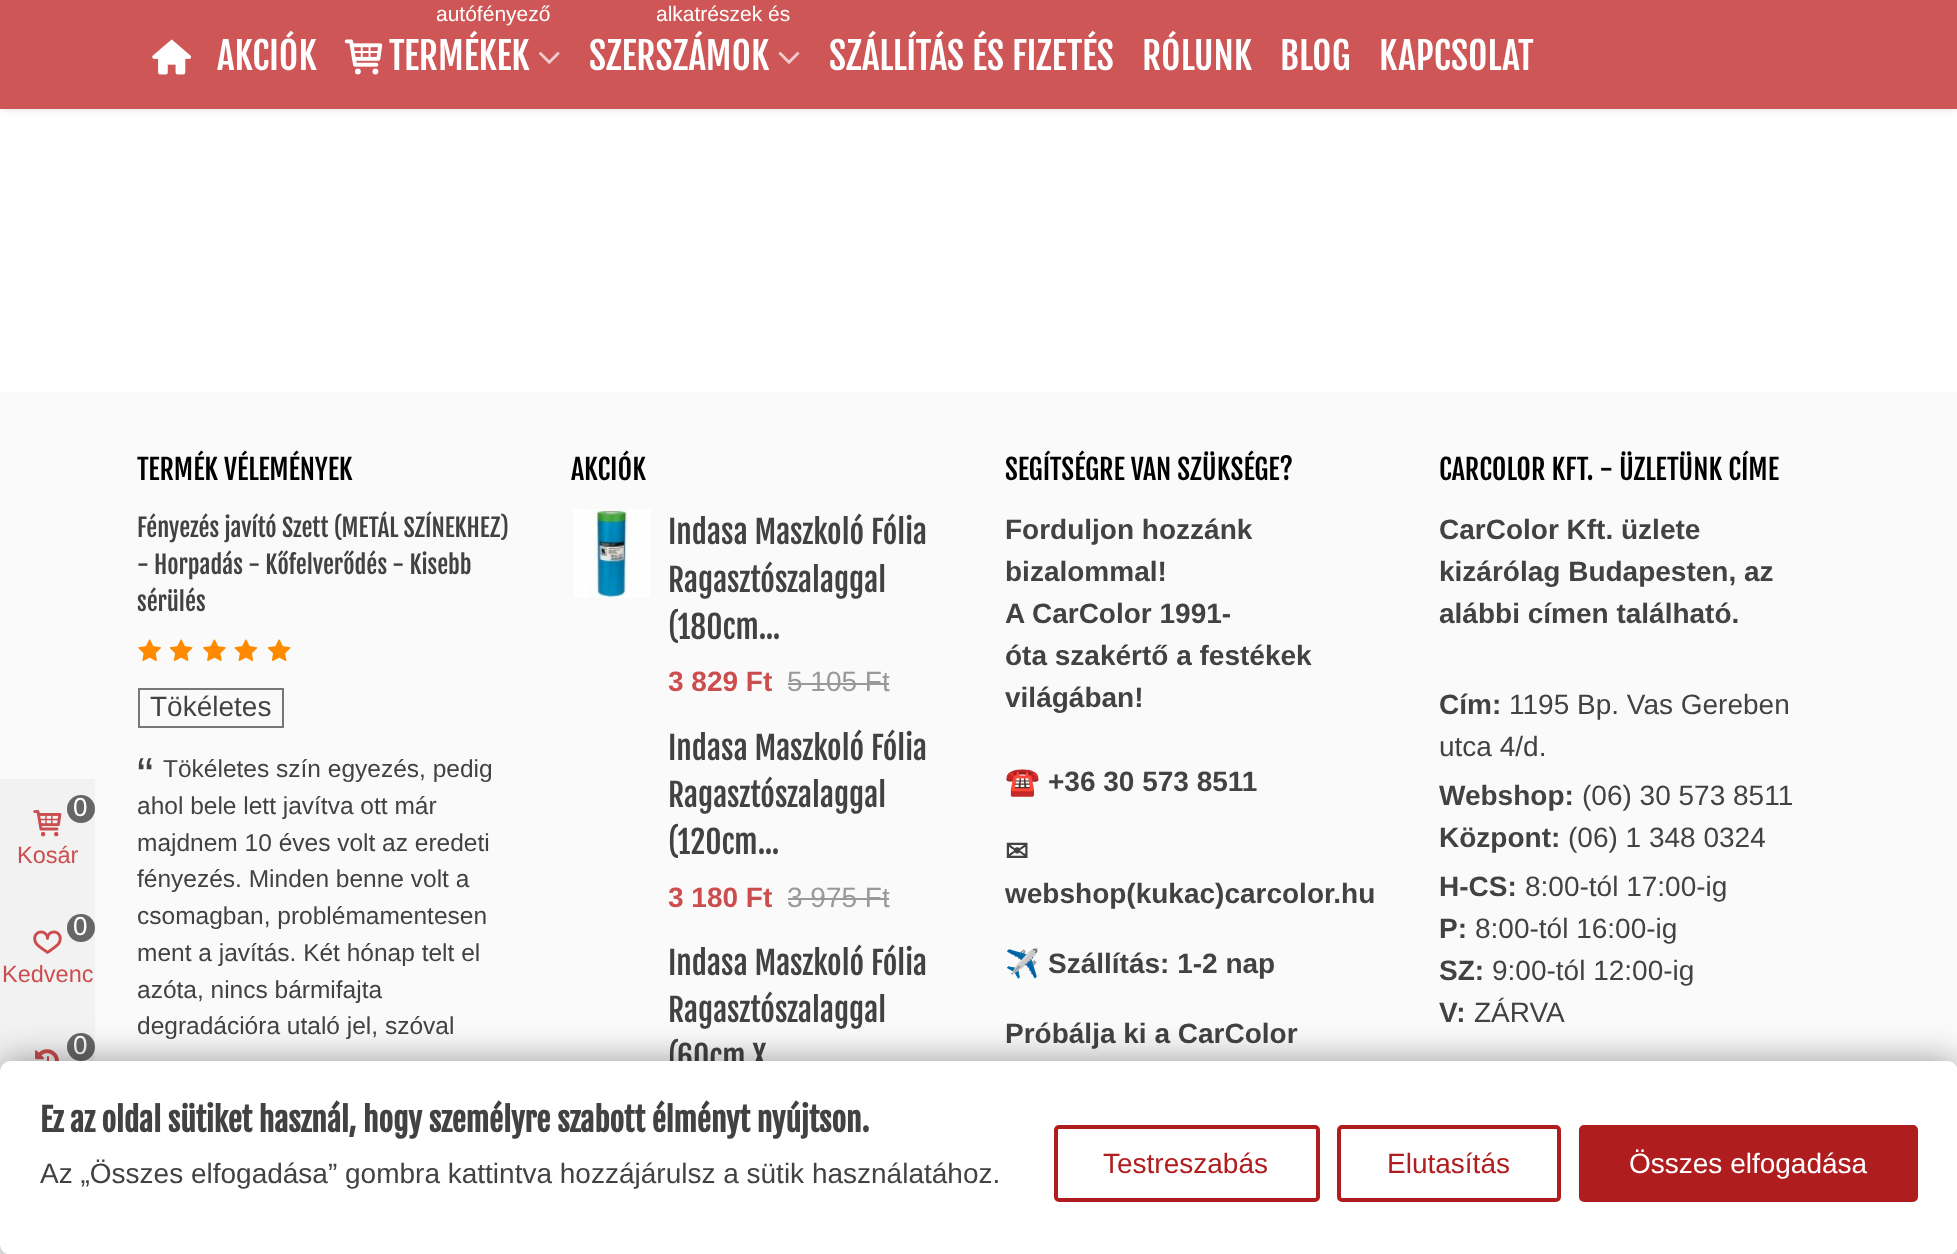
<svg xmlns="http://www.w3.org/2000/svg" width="1957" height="1254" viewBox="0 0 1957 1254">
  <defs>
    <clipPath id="clip1"><path d="M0 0H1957V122H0ZM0 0H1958V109H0Z" clip-rule="evenodd"/></clipPath>
    <filter id="blur1" x="-50%" y="-200%" width="200%" height="500%"><feGaussianBlur stdDeviation="3.5"/></filter>
    <filter id="blur2" x="-50%" y="-200%" width="200%" height="500%"><feGaussianBlur stdDeviation="17.5"/></filter>
  </defs>
  <rect width="100%" height="100%" fill="#ffffff"/>
  <rect x="0" y="392" width="1957" height="862" fill="#fafafa"/>
  <rect x="0" y="779" width="95" height="293" fill="#f2f2f2"/>
  <circle cx="81" cy="809" r="14" fill="#666666"/>
  <text x="73" y="816" font-family="Liberation Sans" font-size="26" fill="#ffffff">0</text>
  <image x="33" y="810" width="29" height="27" href="img1.png"/>
  <text x="17" y="863" font-family="Liberation Sans" font-size="23.5" fill="#cc4d4d">Kosár</text>
  <circle cx="81" cy="928" r="14" fill="#666666"/>
  <text x="73" y="935" font-family="Liberation Sans" font-size="26" fill="#ffffff">0</text>
  <image x="33" y="930" width="29" height="24" href="img2.png"/>
  <text x="2" y="982" font-family="Liberation Sans" font-size="23.5" fill="#cc4d4d">Kedvenc</text>
  <image x="35" y="1049" width="24" height="12" href="img3.png"/>
  <circle cx="81" cy="1047" r="14" fill="#666666"/>
  <text x="73" y="1054" font-family="Liberation Sans" font-size="26" fill="#ffffff">0</text>
  <rect x="0" y="1244" width="7" height="10" fill="#f2f2f2"/>
  <g clip-path="url(#clip1)">
    <rect x="0" y="2" width="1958" height="108" fill="#000000" fill-opacity="0.1" filter="url(#blur1)"/>
  </g>
  <rect x="0" y="0" width="1957" height="109" fill="#cc4d4d" fill-opacity="0.95"/>
  <image x="152" y="39" width="40" height="36" href="img4.png"/>
  <text x="217" y="70" font-family="Fjalla One" font-size="37.25" fill="#ffffff">AKCIÓK</text>
  <text x="436" y="21" font-family="Liberation Sans" font-size="21" fill="#ffffff">autófényező</text>
  <image x="344" y="39" width="39" height="36" href="img5.png"/>
  <text x="389" y="70" font-family="Fjalla One" font-size="37.25" fill="#ffffff">TERMÉKEK</text>
  <image x="538" y="51" width="22" height="13" href="img6.png"/>
  <text x="656" y="21" font-family="Liberation Sans" font-size="21" fill="#ffffff">alkatrészek és</text>
  <text x="589" y="70" font-family="Fjalla One" font-size="37.25" fill="#ffffff">SZERSZÁMOK</text>
  <image x="778" y="51" width="22" height="13" href="img7.png"/>
  <text x="829" y="70" font-family="Fjalla One" font-size="37.25" fill="#ffffff">SZÁLLÍTÁS ÉS FIZETÉS</text>
  <text x="1142" y="70" font-family="Fjalla One" font-size="37.25" fill="#ffffff">RÓLUNK</text>
  <text x="1280" y="70" font-family="Fjalla One" font-size="37.25" fill="#ffffff">BLOG</text>
  <text x="1379" y="70" font-family="Fjalla One" font-size="37.25" fill="#ffffff">KAPCSOLAT</text>
  <text x="137" y="480" font-family="Fjalla One" font-size="28" fill="#000000">TERMÉK VÉLEMÉNYEK</text>
  <text x="137" y="537" font-family="Fjalla One" font-size="24.5" fill="#424242">Fényezés javító Szett (METÁL SZÍNEKHEZ)</text>
  <text x="137" y="574" font-family="Fjalla One" font-size="24.5" fill="#424242">- Horpadás - Kőfelverődés - Kisebb</text>
  <text x="137" y="611" font-family="Fjalla One" font-size="24.5" fill="#424242">sérülés</text>
  <image x="138" y="639" width="23" height="22" href="img8.png"/>
  <image x="169" y="639" width="24" height="22" href="img9.png"/>
  <image x="203" y="639" width="23" height="22" href="img10.png"/>
  <image x="234" y="639" width="24" height="22" href="img11.png"/>
  <image x="267" y="639" width="24" height="22" href="img9.png"/>
  <rect x="139" y="689" width="144" height="38" fill="none" stroke="#777777" stroke-width="2"/>
  <text x="150" y="716" font-family="Liberation Sans" font-size="28" fill="#424242">Tökéletes</text>
  <text x="137" y="792" font-family="Liberation Sans" font-size="49" fill="#424242">“</text>
  <text x="163" y="777" font-family="Liberation Sans" font-size="24.5" fill="#424242">Tökéletes szín egyezés, pedig</text>
  <text x="137" y="814" font-family="Liberation Sans" font-size="24.5" fill="#424242">ahol bele lett javítva ott már</text>
  <text x="137" y="851" font-family="Liberation Sans" font-size="24.5" fill="#424242">majdnem 10 éves volt az eredeti</text>
  <text x="137" y="887" font-family="Liberation Sans" font-size="24.5" fill="#424242">fényezés. Minden benne volt a</text>
  <text x="137" y="924" font-family="Liberation Sans" font-size="24.5" fill="#424242">csomagban, problémamentesen</text>
  <text x="137" y="961" font-family="Liberation Sans" font-size="24.5" fill="#424242">ment a javítás. Két hónap telt el</text>
  <text x="137" y="998" font-family="Liberation Sans" font-size="24.5" fill="#424242">azóta, nincs bármifajta</text>
  <text x="137" y="1034" font-family="Liberation Sans" font-size="24.5" fill="#424242">degradációra utaló jel, szóval</text>
  <text x="571" y="480" font-family="Fjalla One" font-size="28" fill="#000000">AKCIÓK</text>
  <image x="573" y="509" width="78" height="89" href="img12.png"/>
  <text x="668" y="544" font-family="Fjalla One" font-size="31.5" fill="#424242">Indasa Maszkoló Fólia</text>
  <text x="668" y="592" font-family="Fjalla One" font-size="31.5" fill="#424242">Ragasztószalaggal</text>
  <text x="668" y="639" font-family="Fjalla One" font-size="31.5" fill="#424242">(180cm...</text>
  <text x="668" y="691" font-family="Liberation Sans" font-size="28" font-weight="bold" fill="#cc4d4d">3 829 Ft</text>
  <text x="787" y="691" font-family="Liberation Sans" font-size="28" fill="#999999">5 105 Ft</text>
  <rect x="788" y="683" width="101" height="2" fill="#999999"/>
  <text x="668" y="760" font-family="Fjalla One" font-size="31.5" fill="#424242">Indasa Maszkoló Fólia</text>
  <text x="668" y="807" font-family="Fjalla One" font-size="31.5" fill="#424242">Ragasztószalaggal</text>
  <text x="668" y="854" font-family="Fjalla One" font-size="31.5" fill="#424242">(120cm...</text>
  <text x="668" y="907" font-family="Liberation Sans" font-size="28" font-weight="bold" fill="#cc4d4d">3 180 Ft</text>
  <text x="787" y="907" font-family="Liberation Sans" font-size="28" fill="#999999">3 975 Ft</text>
  <rect x="788" y="898" width="101" height="2" fill="#999999"/>
  <text x="668" y="975" font-family="Fjalla One" font-size="31.5" fill="#424242">Indasa Maszkoló Fólia</text>
  <text x="668" y="1022" font-family="Fjalla One" font-size="31.5" fill="#424242">Ragasztószalaggal</text>
  <text x="668" y="1069" font-family="Fjalla One" font-size="31.5" fill="#424242">(60cm X</text>
  <text x="1005" y="480" font-family="Fjalla One" font-size="28" fill="#000000">SEGÍTSÉGRE VAN SZÜKSÉGE?</text>
  <text x="1005" y="539" font-family="Liberation Sans" font-size="28" font-weight="bold" fill="#424242">Forduljon hozzánk</text>
  <text x="1005" y="581" font-family="Liberation Sans" font-size="28" font-weight="bold" fill="#424242">bizalommal!</text>
  <text x="1005" y="623" font-family="Liberation Sans" font-size="28" font-weight="bold" fill="#424242">A CarColor 1991-</text>
  <text x="1005" y="665" font-family="Liberation Sans" font-size="28" font-weight="bold" fill="#424242">óta szakértő a festékek</text>
  <text x="1005" y="707" font-family="Liberation Sans" font-size="28" font-weight="bold" fill="#424242">világában!</text>
  <text x="1005" y="791" font-family="Noto Color Emoji" font-size="28" font-weight="bold" fill="#424242">☎️</text>
  <text x="1048" y="791" font-family="Liberation Sans" font-size="28" font-weight="bold" fill="#424242">+36 30 573 8511</text>
  <text x="1005" y="861" font-family="DejaVu Sans" font-size="28" font-weight="bold" fill="#424242">✉</text>
  <text x="1005" y="903" font-family="Liberation Sans" font-size="28" font-weight="bold" fill="#424242">webshop(kukac)carcolor.hu</text>
  <text x="1005" y="973" font-family="Noto Color Emoji" font-size="28" font-weight="bold" fill="#424242">✈️</text>
  <text x="1048" y="973" font-family="Liberation Sans" font-size="28" font-weight="bold" fill="#424242">Szállítás: 1-2 nap</text>
  <text x="1005" y="1043" font-family="Liberation Sans" font-size="28" font-weight="bold" fill="#424242">Próbálja ki a CarColor</text>
  <text x="1439" y="480" font-family="Fjalla One" font-size="28" fill="#000000">CARCOLOR KFT. - ÜZLETÜNK CÍME</text>
  <text x="1439" y="539" font-family="Liberation Sans" font-size="28" font-weight="bold" fill="#424242">CarColor Kft. üzlete</text>
  <text x="1439" y="581" font-family="Liberation Sans" font-size="28" font-weight="bold" fill="#424242">kizárólag Budapesten, az</text>
  <text x="1439" y="623" font-family="Liberation Sans" font-size="28" font-weight="bold" fill="#424242">alábbi címen található.</text>
  <text x="1439" y="714" font-family="Liberation Sans" font-size="28" font-weight="bold" fill="#424242">Cím:</text>
  <text x="1509" y="714" font-family="Liberation Sans" font-size="28" fill="#424242">1195 Bp. Vas Gereben</text>
  <text x="1439" y="756" font-family="Liberation Sans" font-size="28" fill="#424242">utca 4/d.</text>
  <text x="1439" y="805" font-family="Liberation Sans" font-size="28" font-weight="bold" fill="#424242">Webshop:</text>
  <text x="1582" y="805" font-family="Liberation Sans" font-size="28" fill="#424242">(06) 30 573 8511</text>
  <text x="1439" y="847" font-family="Liberation Sans" font-size="28" font-weight="bold" fill="#424242">Központ:</text>
  <text x="1568" y="847" font-family="Liberation Sans" font-size="28" fill="#424242">(06) 1 348 0324</text>
  <text x="1439" y="896" font-family="Liberation Sans" font-size="28" font-weight="bold" fill="#424242">H-CS:</text>
  <text x="1525" y="896" font-family="Liberation Sans" font-size="28" fill="#424242">8:00-tól 17:00-ig</text>
  <text x="1439" y="938" font-family="Liberation Sans" font-size="28" font-weight="bold" fill="#424242">P:</text>
  <text x="1475" y="938" font-family="Liberation Sans" font-size="28" fill="#424242">8:00-tól 16:00-ig</text>
  <text x="1439" y="980" font-family="Liberation Sans" font-size="28" font-weight="bold" fill="#424242">SZ:</text>
  <text x="1492" y="980" font-family="Liberation Sans" font-size="28" fill="#424242">9:00-tól 12:00-ig</text>
  <text x="1439" y="1022" font-family="Liberation Sans" font-size="28" font-weight="bold" fill="#424242">V:</text>
  <text x="1474" y="1022" font-family="Liberation Sans" font-size="28" fill="#424242">ZÁRVA</text>
  <rect x="0" y="1061" width="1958" height="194" rx="11" fill="#000000" fill-opacity="0.4" filter="url(#blur2)"/>
  <rect x="0" y="1061" width="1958" height="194" rx="11" fill="#ffffff"/>
  <text x="40" y="1132" font-family="Fjalla One" font-size="31.5" font-weight="bold" fill="#424242">Ez az oldal sütiket használ, hogy személyre szabott élményt nyújtson.</text>
  <text x="40" y="1183" font-family="Liberation Sans" font-size="28" fill="#424242">Az „Összes elfogadása” gombra kattintva hozzájárulsz a sütik használatához.</text>
  <rect x="1056" y="1127" width="262" height="73" rx="3" fill="none" stroke="#af1d1f" stroke-width="4"/>
  <text x="1103" y="1173" font-family="Liberation Sans" font-size="28" fill="#af1d1f">Testreszabás</text>
  <rect x="1339" y="1127" width="220" height="73" rx="3" fill="none" stroke="#af1d1f" stroke-width="4"/>
  <text x="1387" y="1173" font-family="Liberation Sans" font-size="28" fill="#af1d1f">Elutasítás</text>
  <rect x="1581" y="1127" width="335" height="73" rx="3" fill="#af1d1f" stroke="#af1d1f" stroke-width="4"/>
  <text x="1629" y="1173" font-family="Liberation Sans" font-size="28" fill="#ffffff">Összes elfogadása</text>
</svg>
